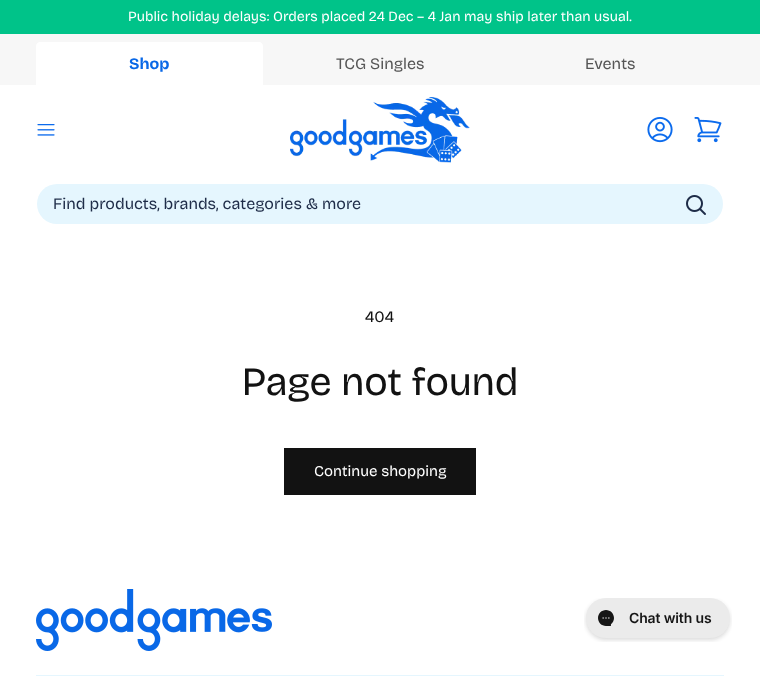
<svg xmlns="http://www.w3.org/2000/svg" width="760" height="685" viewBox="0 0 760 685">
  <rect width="100%" height="100%" fill="#ffffff"/>
  <rect x="0" y="0" width="760" height="34" fill="#00c389"/>
  <text x="128" y="21" font-family="'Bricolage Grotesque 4'" font-size="14" fill="#ffffff">Public holiday delays: Orders placed 24 Dec – 4 Jan may ship later than usual.</text>
  <rect x="0" y="34" width="760" height="51" fill="#f7f7f7"/>
  <path d="M40 42H259C261 42 263 44 263 46V85H36V46C36 44 38 42 40 42Z" fill="#ffffff"/>
  <text x="129" y="69" font-family="Bricolage Grotesque" font-size="16" font-weight="bold" fill="#0968e7">Shop</text>
  <text x="336" y="69" font-family="Bricolage Grotesque" font-size="16" fill="#555555">TCG Singles</text>
  <text x="585" y="69" font-family="Bricolage Grotesque" font-size="16" fill="#555555">Events</text>
  <image x="37" y="124" width="18" height="12" href="img1.png"/>
  <image x="290" y="97" width="180" height="66" href="img2.png"/>
  <image x="647" y="117" width="26" height="26" href="img3.png"/>
  <image x="694" y="117" width="28" height="26" href="img4.png"/>
  <rect x="37" y="184" width="686" height="40" rx="20" fill="#e5f6fe"/>
  <text x="53" y="209" font-family="Bricolage Grotesque" font-size="16" fill="#1e2c48">Find products, brands, categories &amp; more</text>
  <image x="686" y="195" width="20" height="20" href="img5.png"/>
  <text x="365" y="322" font-family="Bricolage Grotesque" font-size="16" fill="#121212">404</text>
  <text x="242" y="395" font-family="'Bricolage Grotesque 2'" font-size="40" fill="#121212">Page not found</text>
  <rect x="284" y="448" width="192" height="47" fill="#121212"/>
  <text x="314" y="476" font-family="'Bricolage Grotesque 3'" font-size="15" fill="#ffffff">Continue shopping</text>
  <image x="36" y="589" width="236" height="62" href="img6.png"/>
  <rect x="36" y="675" width="688" height="1" fill="#e5f6fe"/>
  <image x="584" y="598" width="148" height="44" href="img7.png"/>
</svg>
